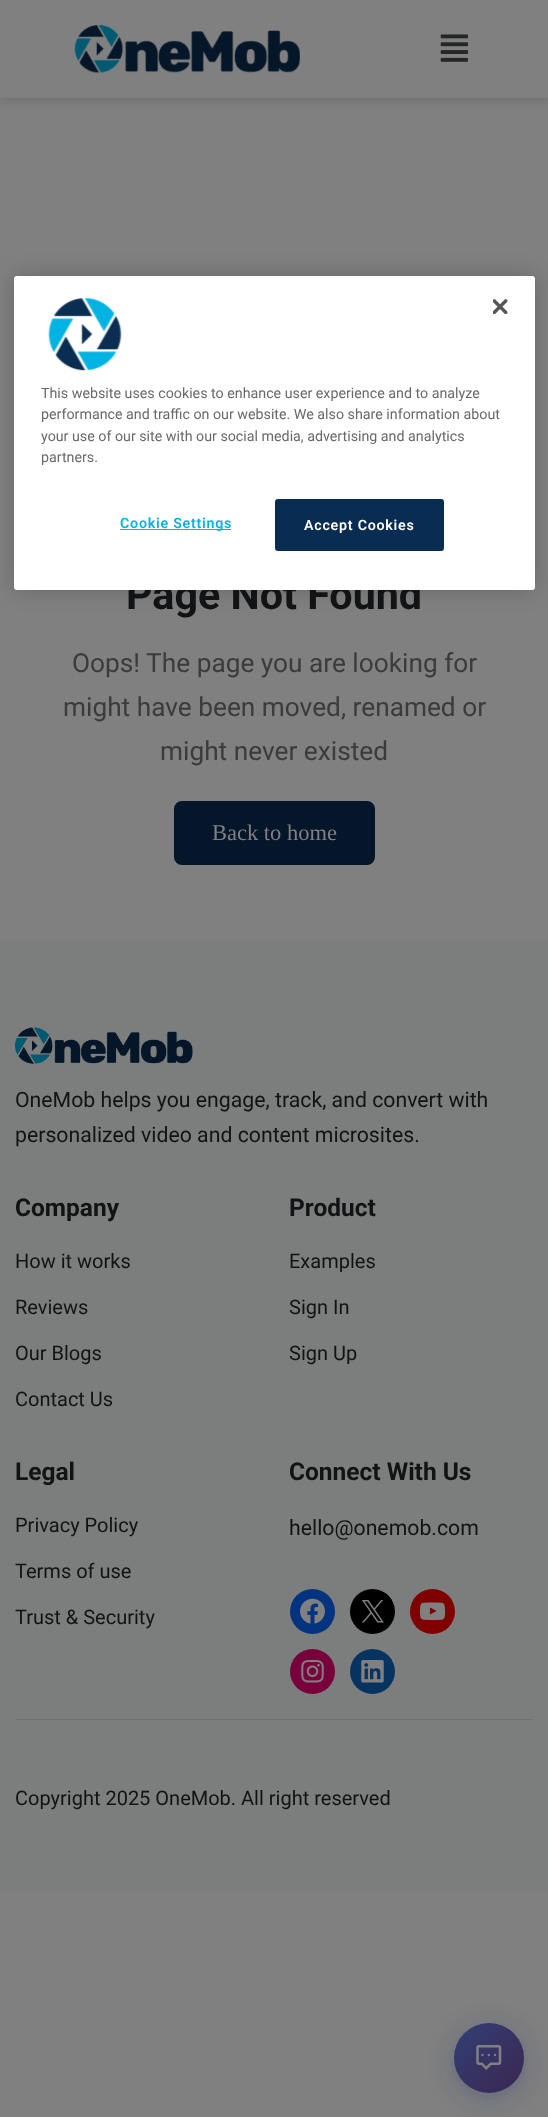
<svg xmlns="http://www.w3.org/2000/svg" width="548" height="2117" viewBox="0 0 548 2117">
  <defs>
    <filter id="blur1" x="-50%" y="-200%" width="200%" height="500%"><feGaussianBlur stdDeviation="11"/></filter>
    <clipPath id="clip1"><path d="M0 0H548V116H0ZM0 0H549V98H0Z" clip-rule="evenodd"/></clipPath>
    <filter id="blur2" x="-50%" y="-200%" width="200%" height="500%"><feGaussianBlur stdDeviation="4"/></filter>
    <filter id="blur3" x="-50%" y="-200%" width="200%" height="500%"><feGaussianBlur stdDeviation="12.5"/></filter>
    <linearGradient id="g1" gradientUnits="userSpaceOnUse" x1="454" y1="2023" x2="524" y2="2093"><stop offset="0" stop-color="#333f75"/><stop offset="1" stop-color="#3b2651"/></linearGradient>
  </defs>
  <rect width="100%" height="100%" fill="#808080"/>
  <rect x="14" y="276" width="521" height="314" rx="3" fill="#000000" fill-opacity="0.2" filter="url(#blur1)"/>
  <text x="126" y="609" font-family="Roboto" font-size="41.25" font-weight="bold" fill="#111315">Page Not Found</text>
  <rect x="14" y="276" width="521" height="314" rx="3" fill="#ffffff"/>
  <image x="493" y="299" width="15" height="15" href="img1.png"/>
  <image x="48" y="298" width="74" height="73" href="img2.png"/>
  <text x="41" y="398" font-family="Roboto" font-size="14.25" fill="#696969">This website uses cookies to enhance user experience and to analyze</text>
  <text x="41" y="419" font-family="Roboto" font-size="14.25" fill="#696969">performance and traffic on our website. We also share information about</text>
  <text x="41" y="441" font-family="Roboto" font-size="14.25" fill="#696969">your use of our site with our social media, advertising and analytics</text>
  <text x="41" y="462" font-family="Roboto" font-size="14.25" fill="#696969">partners.</text>
  <rect x="120" y="529" width="111" height="1" fill="#00b3e3"/>
  <text x="120" y="528" font-family="Roboto" font-size="14.25" font-weight="600" letter-spacing="0.75" fill="#00b3e3">Cookie Settings</text>
  <rect x="275.5" y="499.5" width="168" height="51" rx="2" fill="#092d52" stroke="#092d52"/>
  <text x="304" y="530" font-family="Roboto" font-size="14.25" font-weight="600" letter-spacing="0.75" fill="#ffffff">Accept Cookies</text>
  <g clip-path="url(#clip1)">
    <rect x="0" y="5" width="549" height="98" fill="#000000" fill-opacity="0.1" filter="url(#blur2)"/>
  </g>
  <rect x="0" y="97" width="548" height="1" fill="#808080" fill-opacity="0.8"/>
  <image x="74" y="25" width="226" height="48" href="img3.png"/>
  <image x="440" y="34" width="29" height="28" href="img4.png"/>
  <text x="72" y="672" font-family="Roboto" font-size="26.25" fill="#3b3b3b">Oops! The page you are looking for</text>
  <text x="63" y="716" font-family="Roboto" font-size="26.25" fill="#3b3b3b">might have been moved, renamed or</text>
  <text x="160" y="760" font-family="Roboto" font-size="26.25" fill="#3b3b3b">might never existed</text>
  <rect x="175.5" y="802.5" width="198" height="61" rx="6.5" fill="#06162a" stroke="#06162a" stroke-width="3"/>
  <text x="212" y="840" font-family="Liberation Serif" font-size="22.5" fill="#808080">Back to home</text>
  <rect x="0" y="940" width="548" height="951" fill="#7c7d7d"/>
  <image x="15" y="1027" width="178" height="37" href="img5.png"/>
  <text x="15" y="1107" font-family="Roboto" font-size="21.25" fill="#111315">OneMob helps you engage, track, and convert with</text>
  <text x="15" y="1142" font-family="Roboto" font-size="21.25" fill="#111315">personalized video and content microsites.</text>
  <text x="15" y="1216" font-family="Roboto" font-size="24.5" font-weight="bold" fill="#111315">Company</text>
  <text x="15" y="1268" font-family="Roboto" font-size="20" fill="#111315">How it works</text>
  <text x="15" y="1314" font-family="Roboto" font-size="20" fill="#111315">Reviews</text>
  <text x="15" y="1360" font-family="Roboto" font-size="20" fill="#111315">Our Blogs</text>
  <text x="15" y="1406" font-family="Roboto" font-size="20" fill="#111315">Contact Us</text>
  <text x="289" y="1216" font-family="Roboto" font-size="24.5" font-weight="bold" fill="#111315">Product</text>
  <text x="289" y="1268" font-family="Roboto" font-size="20" fill="#111315">Examples</text>
  <text x="289" y="1314" font-family="Roboto" font-size="20" fill="#111315">Sign In</text>
  <text x="289" y="1360" font-family="Roboto" font-size="20" fill="#111315">Sign Up</text>
  <text x="15" y="1480" font-family="Roboto" font-size="24.5" font-weight="bold" fill="#111315">Legal</text>
  <text x="15" y="1532" font-family="Roboto" font-size="20" fill="#111315">Privacy Policy</text>
  <text x="15" y="1578" font-family="Roboto" font-size="20" fill="#111315">Terms of use</text>
  <text x="15" y="1624" font-family="Roboto" font-size="20" fill="#111315">Trust &amp; Security</text>
  <text x="289" y="1480" font-family="Roboto" font-size="24.5" font-weight="bold" fill="#111315">Connect With Us</text>
  <text x="289" y="1535" font-family="Roboto" font-size="21.25" fill="#111315">hello@onemob.com</text>
  <circle cx="312.5" cy="1611.5" r="22.5" fill="#043380"/>
  <image x="300" y="1598" width="25" height="26" href="img6.png"/>
  <circle cx="372.5" cy="1611.5" r="22.5" fill="#000000"/>
  <image x="362" y="1600" width="22" height="23" href="img7.png"/>
  <circle cx="432.5" cy="1611.5" r="22.5" fill="#800000"/>
  <image x="420" y="1602" width="25" height="19" href="img8.png"/>
  <circle cx="312.5" cy="1671.5" r="22.5" fill="#78003b"/>
  <image x="301" y="1660" width="23" height="23" href="img9.png"/>
  <circle cx="372.5" cy="1671.5" r="22.5" fill="#073361"/>
  <image x="361" y="1660" width="23" height="23" href="img10.png"/>
  <rect x="15" y="1719" width="519" height="1" fill="#6f7173"/>
  <text x="15" y="1805" font-family="Roboto" font-size="20" fill="#111315">Copyright 2025 OneMob. All right reserved</text>
  <rect x="454" y="2028" width="70" height="70" rx="35" fill="#333f75" fill-opacity="0.4" filter="url(#blur3)"/>
  <circle cx="489" cy="2058" r="35" fill="url(#g1)"/>
  <image x="476" y="2045" width="26" height="25" href="img11.png"/>
</svg>
